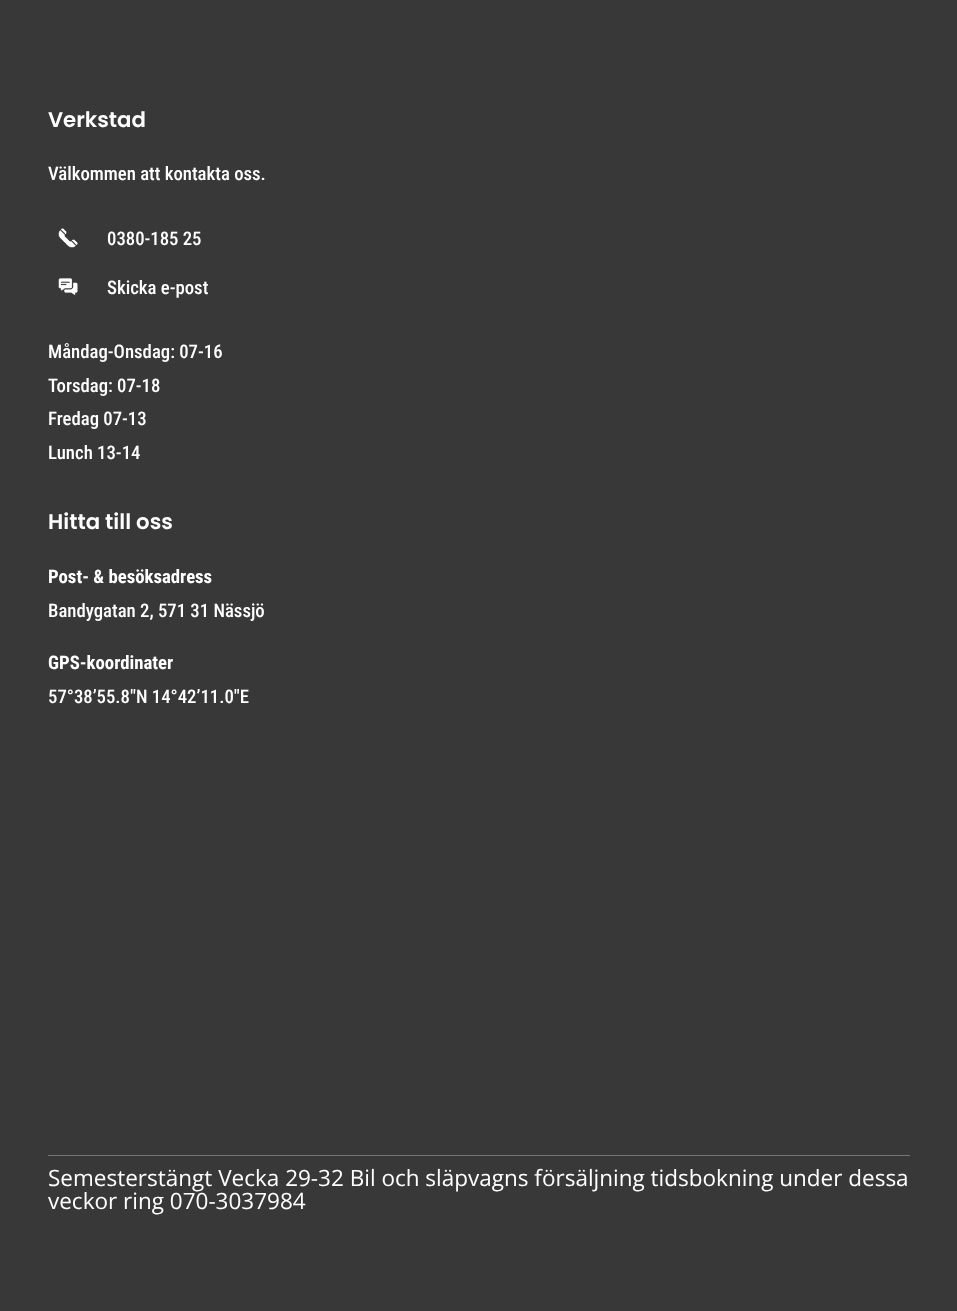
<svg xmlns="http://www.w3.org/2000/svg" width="957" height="1311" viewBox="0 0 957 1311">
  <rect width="100%" height="100%" fill="#383838"/>
  <rect x="48" y="1155" width="862" height="1" fill="#757575"/>
  <text x="48" y="127" font-family="Poppins" font-size="21.25" font-weight="600" fill="#ffffff">Verkstad</text>
  <text x="48" y="180" font-family="Roboto Condensed" font-size="18.75" font-weight="500" fill="#ffffff">Välkommen att kontakta oss.</text>
  <image x="58" y="228" width="20" height="20" href="img1.png"/>
  <text x="107" y="245" font-family="Roboto Condensed" font-size="18.75" font-weight="500" fill="#ffffff">0380-185 25</text>
  <image x="58" y="278" width="20" height="17" href="img2.png"/>
  <text x="107" y="294" font-family="Roboto Condensed" font-size="18.75" font-weight="500" fill="#ffffff">Skicka e-post</text>
  <text x="48" y="358" font-family="Roboto Condensed" font-size="18.75" font-weight="500" fill="#ffffff">Måndag-Onsdag: 07-16</text>
  <text x="48" y="392" font-family="Roboto Condensed" font-size="18.75" font-weight="500" fill="#ffffff">Torsdag: 07-18</text>
  <text x="48" y="425" font-family="Roboto Condensed" font-size="18.75" font-weight="500" fill="#ffffff">Fredag 07-13</text>
  <text x="48" y="459" font-family="Roboto Condensed" font-size="18.75" font-weight="500" fill="#ffffff">Lunch 13-14</text>
  <text x="48" y="529" font-family="Poppins" font-size="21.25" font-weight="600" fill="#ffffff">Hitta till oss</text>
  <text x="48" y="583" font-family="Roboto Condensed" font-size="18.75" font-weight="bold" fill="#ffffff">Post- &amp; besöksadress</text>
  <text x="48" y="617" font-family="Roboto Condensed" font-size="18.75" font-weight="500" fill="#ffffff">Bandygatan 2, 571 31 Nässjö</text>
  <text x="48" y="669" font-family="Roboto Condensed" font-size="18.75" font-weight="bold" fill="#ffffff">GPS-koordinater</text>
  <text x="48" y="703" font-family="Roboto Condensed" font-size="18.75" font-weight="500" fill="#ffffff">57°38’55.8″N 14°42’11.0″E</text>
  <text x="48" y="1186" font-family="Open Sans" font-size="22.5" fill="#ffffff">Semesterstängt Vecka 29-32 Bil och släpvagns försäljning tidsbokning under dessa</text>
  <text x="48" y="1209" font-family="Open Sans" font-size="22.5" fill="#ffffff">veckor ring 070-3037984</text>
</svg>
